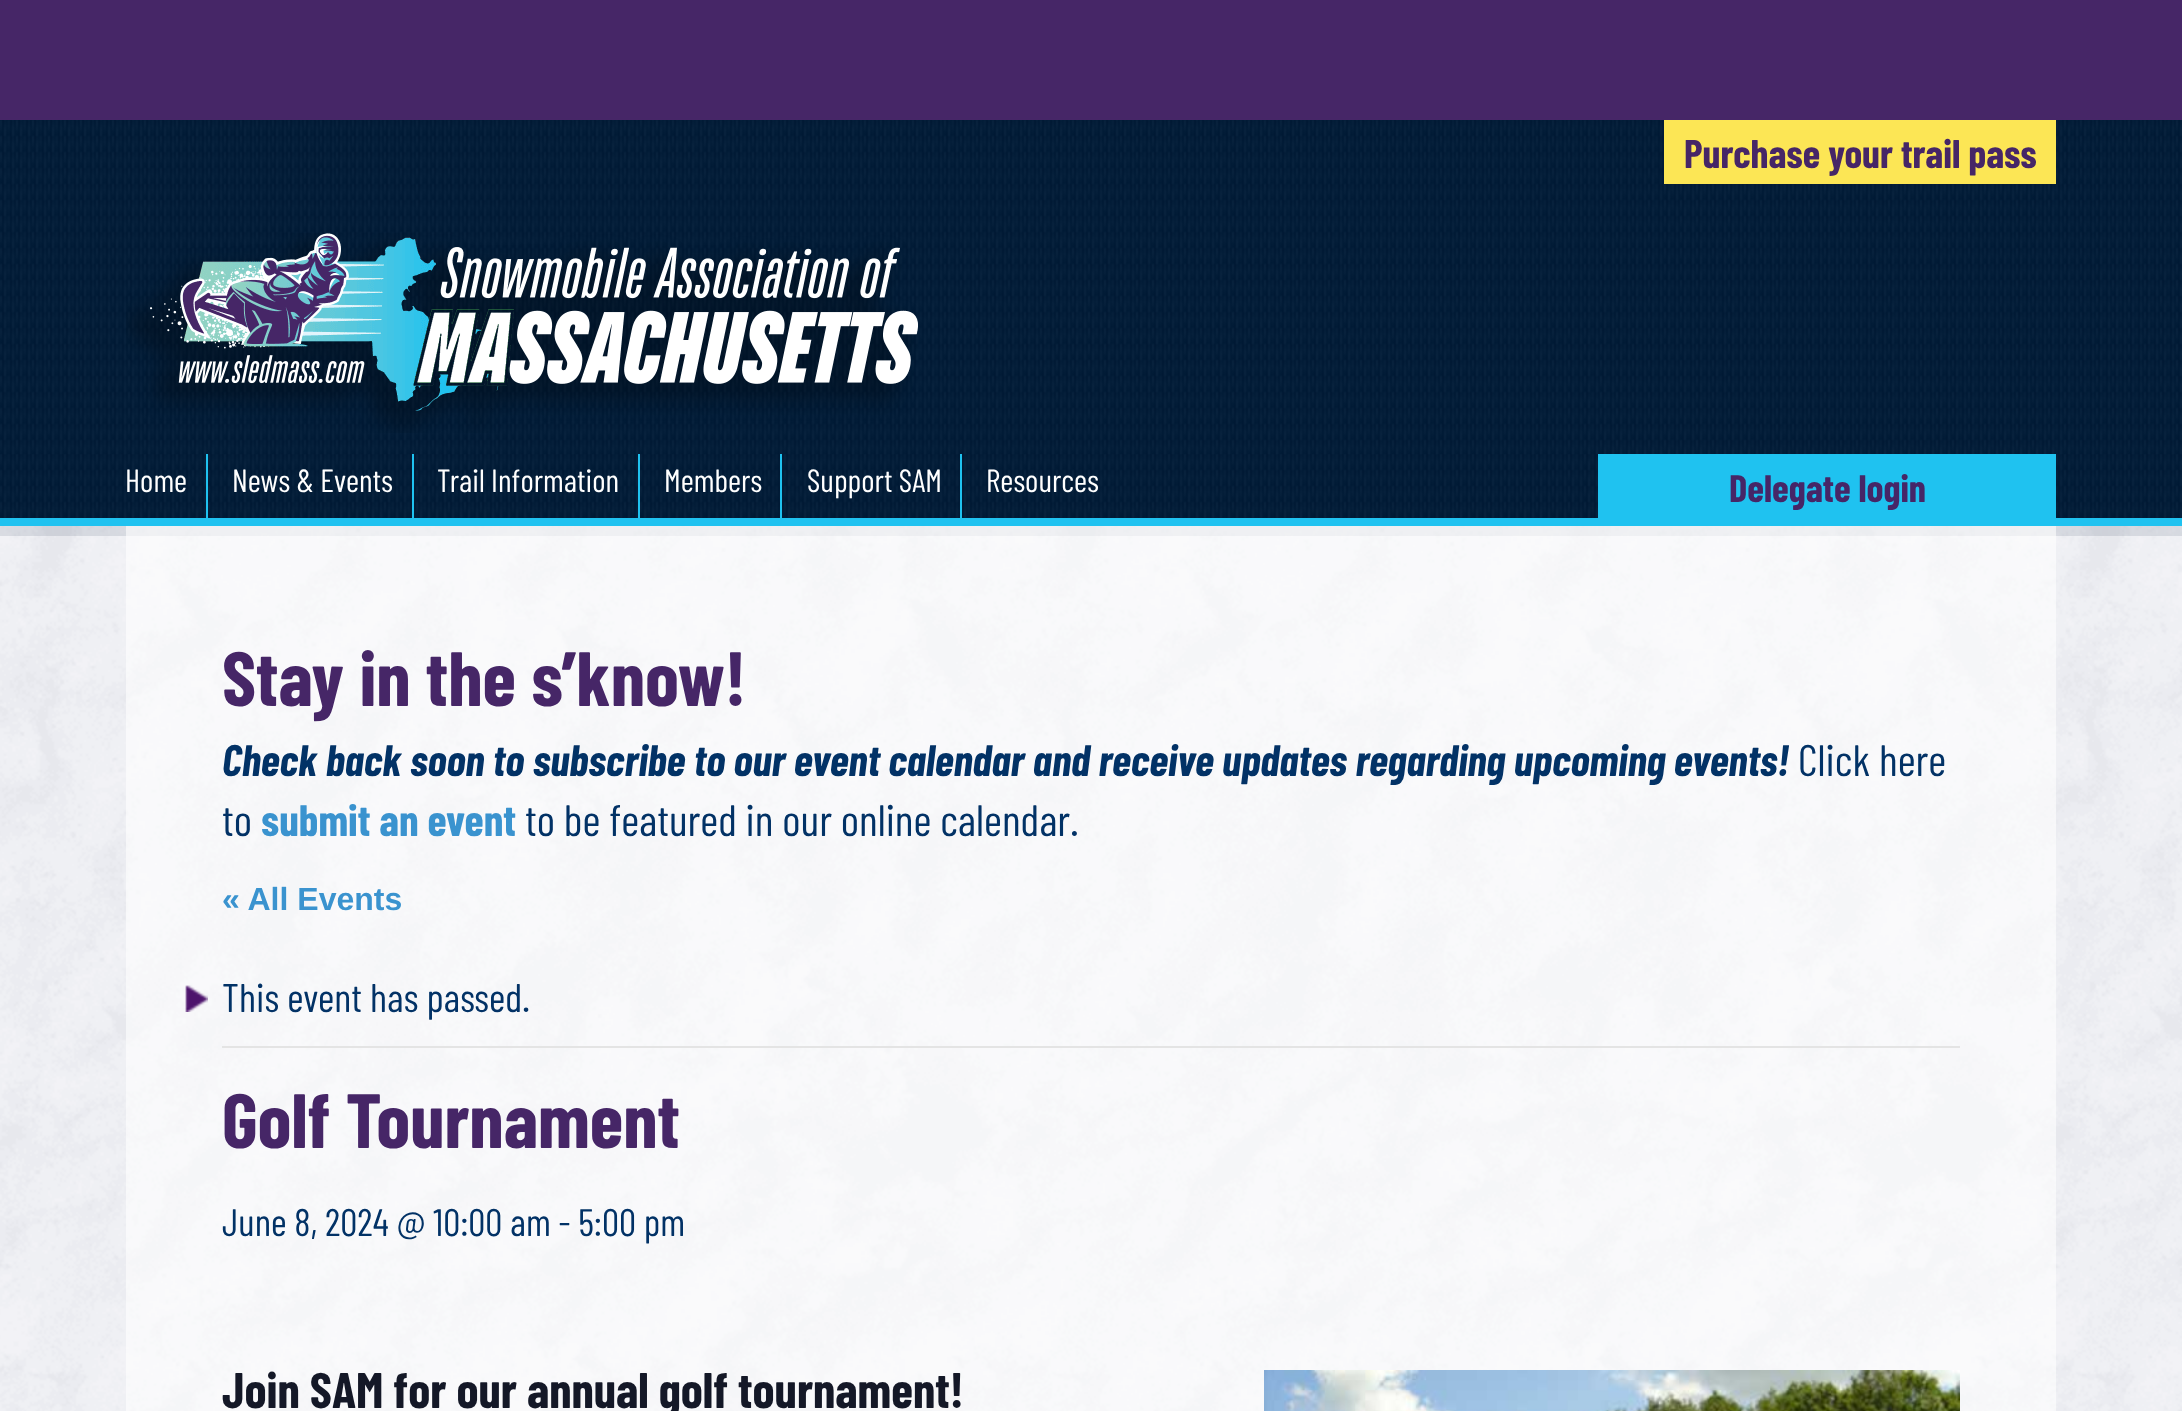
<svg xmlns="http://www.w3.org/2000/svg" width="2182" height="1411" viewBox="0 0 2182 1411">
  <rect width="100%" height="100%" fill="#ffffff"/>
  <rect x="0" y="0" width="2182" height="120" fill="#462667"/>
  <image x="0" y="120" width="2182" height="334" href="img1.png"/>
  <rect x="1664" y="120" width="392" height="64" fill="#fce655"/>
  <text x="1684" y="168" font-family="Barlow Condensed" font-size="40" font-weight="bold" fill="#462667">Purchase your trail pass</text>
  <image x="126" y="233" width="792" height="200" href="img2.png"/>
  <image x="0" y="454" width="2182" height="82" href="img3.png"/>
  <rect x="0" y="518" width="2182" height="8" fill="#1fc2f0"/>
  <rect x="206" y="454" width="2" height="68" fill="#1fc2f0"/>
  <text x="125" y="492" font-family="Barlow Condensed" font-size="32" fill="#ffffff">Home</text>
  <rect x="412" y="454" width="2" height="68" fill="#1fc2f0"/>
  <text x="232" y="492" font-family="Barlow Condensed" font-size="32" fill="#ffffff">News &amp; Events</text>
  <rect x="638" y="454" width="2" height="68" fill="#1fc2f0"/>
  <text x="437" y="492" font-family="Barlow Condensed" font-size="32" fill="#ffffff">Trail Information</text>
  <rect x="780" y="454" width="2" height="68" fill="#1fc2f0"/>
  <text x="664" y="492" font-family="Barlow Condensed" font-size="32" fill="#ffffff">Members</text>
  <rect x="960" y="454" width="2" height="68" fill="#1fc2f0"/>
  <text x="807" y="492" font-family="Barlow Condensed" font-size="32" fill="#ffffff">Support SAM</text>
  <text x="986" y="492" font-family="Barlow Condensed" font-size="32" fill="#ffffff">Resources</text>
  <rect x="1598" y="454" width="458" height="64" fill="#1fc2f0"/>
  <text x="1729" y="502" font-family="Barlow Condensed" font-size="38.4" font-weight="bold" fill="#462667">Delegate login</text>
  <image x="0" y="526" width="2182" height="885" href="img4.png"/>
  <rect x="126" y="526" width="1930" height="885" fill="#ffffff" fill-opacity="0.6"/>
  <text x="222" y="706" font-family="Barlow Condensed" font-size="76.75" font-weight="bold" fill="#462667">Stay in the s’know!</text>
  <text x="222" y="776" font-family="Barlow Condensed" font-size="44" font-weight="bold" font-style="italic" fill="#023266">Check back soon to subscribe to our event calendar and receive updates regarding upcoming events!</text>
  <text x="1798" y="776" font-family="Barlow Condensed" font-size="44" fill="#023266">Click here</text>
  <text x="222" y="836" font-family="Barlow Condensed" font-size="44" fill="#023266">to</text>
  <text x="261" y="836" font-family="Barlow Condensed" font-size="44" font-weight="bold" fill="#3a93cf">submit an event</text>
  <text x="525" y="836" font-family="Barlow Condensed" font-size="44" fill="#023266">to be featured in our online calendar.</text>
  <text x="222" y="910" font-family="Liberation Sans" font-size="32" font-weight="bold" fill="#3a93cf">« All Events</text>
  <rect x="222" y="1046" width="1738" height="2" fill="#e4e4e4"/>
  <image x="185" y="985" width="23" height="27" href="img5.png"/>
  <text x="222" y="1012" font-family="Barlow Condensed" font-size="40" fill="#023266">This event has passed.</text>
  <text x="222" y="1148" font-family="Barlow Condensed" font-size="76.75" font-weight="bold" fill="#462667">Golf Tournament</text>
  <text x="222" y="1236" font-family="Barlow Condensed" font-size="38.4" fill="#023266">June 8, 2024 @ 10:00 am - 5:00 pm</text>
  <text x="222" y="1408" font-family="Barlow Condensed" font-size="49.9" font-weight="bold" fill="#141827">Join SAM for our annual golf tournament!</text>
  <image x="1264" y="1370" width="696" height="41" href="img6.png"/>
</svg>
